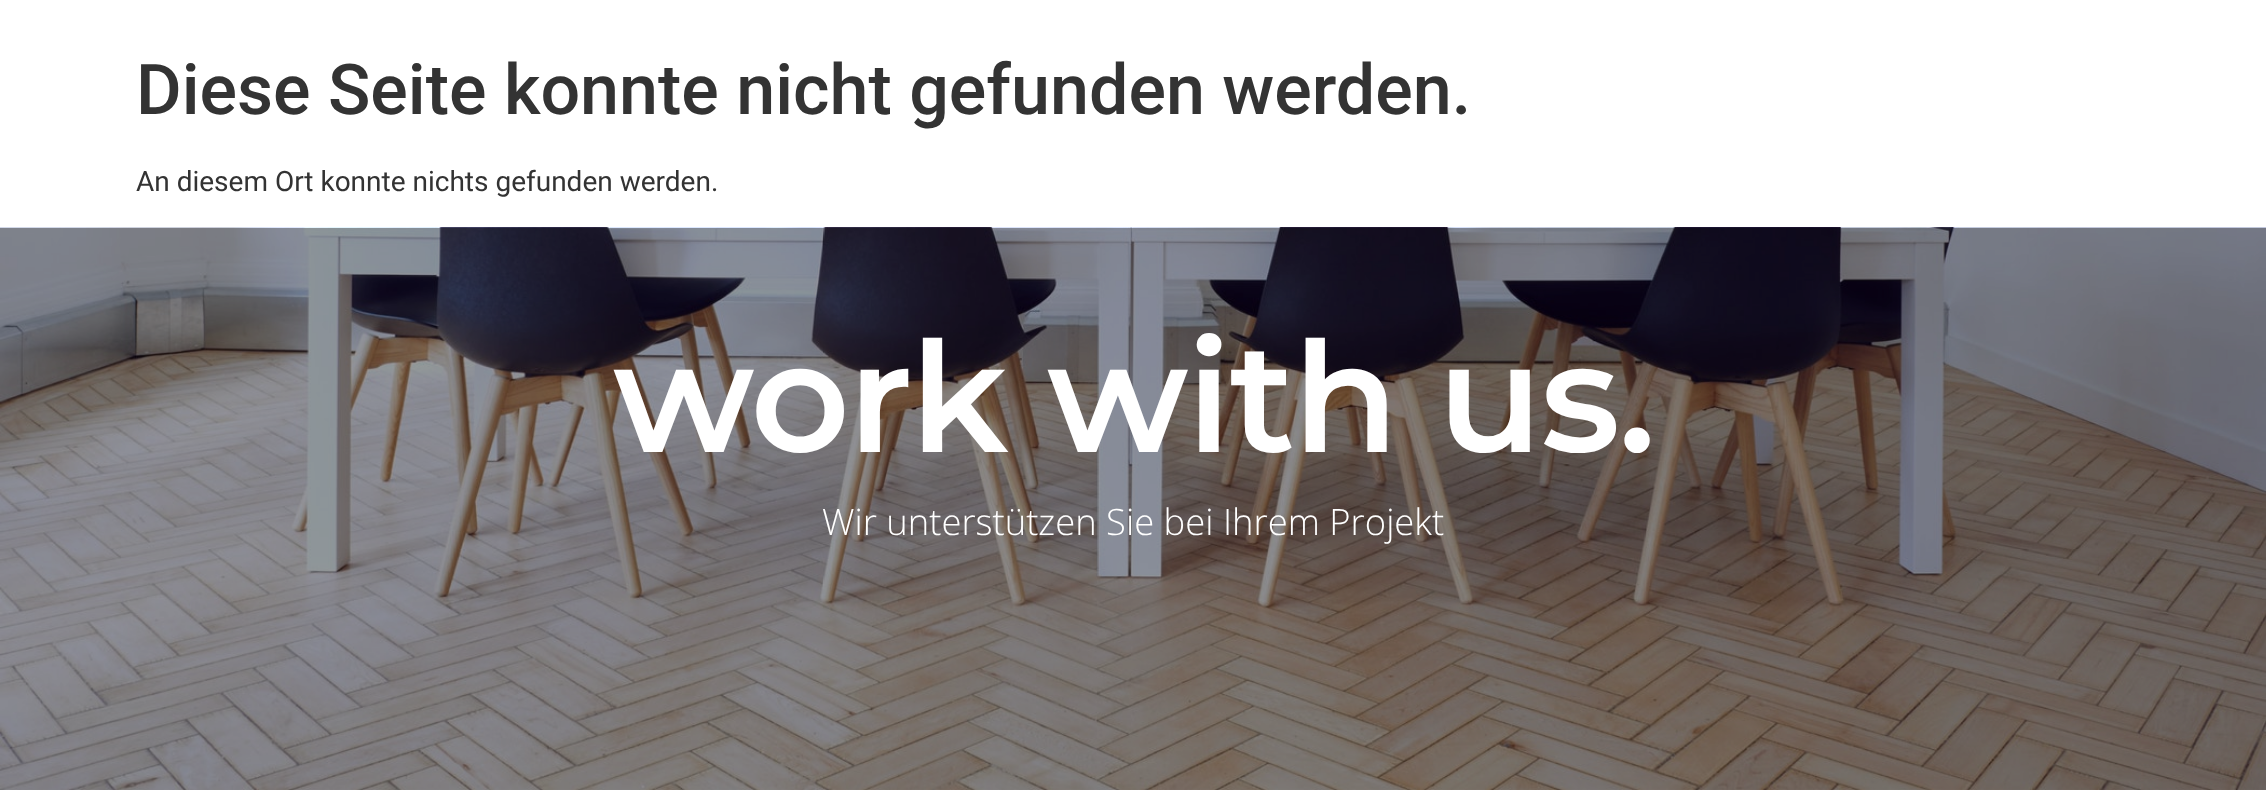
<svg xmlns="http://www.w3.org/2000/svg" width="2266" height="790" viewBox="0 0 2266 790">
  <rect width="100%" height="100%" fill="#ffffff"/>
  <text x="136" y="114" font-family="Roboto" font-size="70" font-weight="500" fill="#333333">Diese Seite konnte nicht gefunden werden.</text>
  <text x="136" y="191" font-family="Roboto" font-size="28" fill="#333333">An diesem Ort konnte nichts gefunden werden.</text>
  <image x="0" y="227" width="2266" height="563" href="img1.png"/>
  <text x="613" y="452" font-family="Montserrat" font-size="154" font-weight="600" letter-spacing="-1.75" fill="#ffffff">work with us.</text>
  <text x="822" y="535" font-family="Open Sans" font-size="36.4" font-weight="300" fill="#ffffff">Wir unterstützen Sie bei Ihrem Projekt</text>
</svg>
